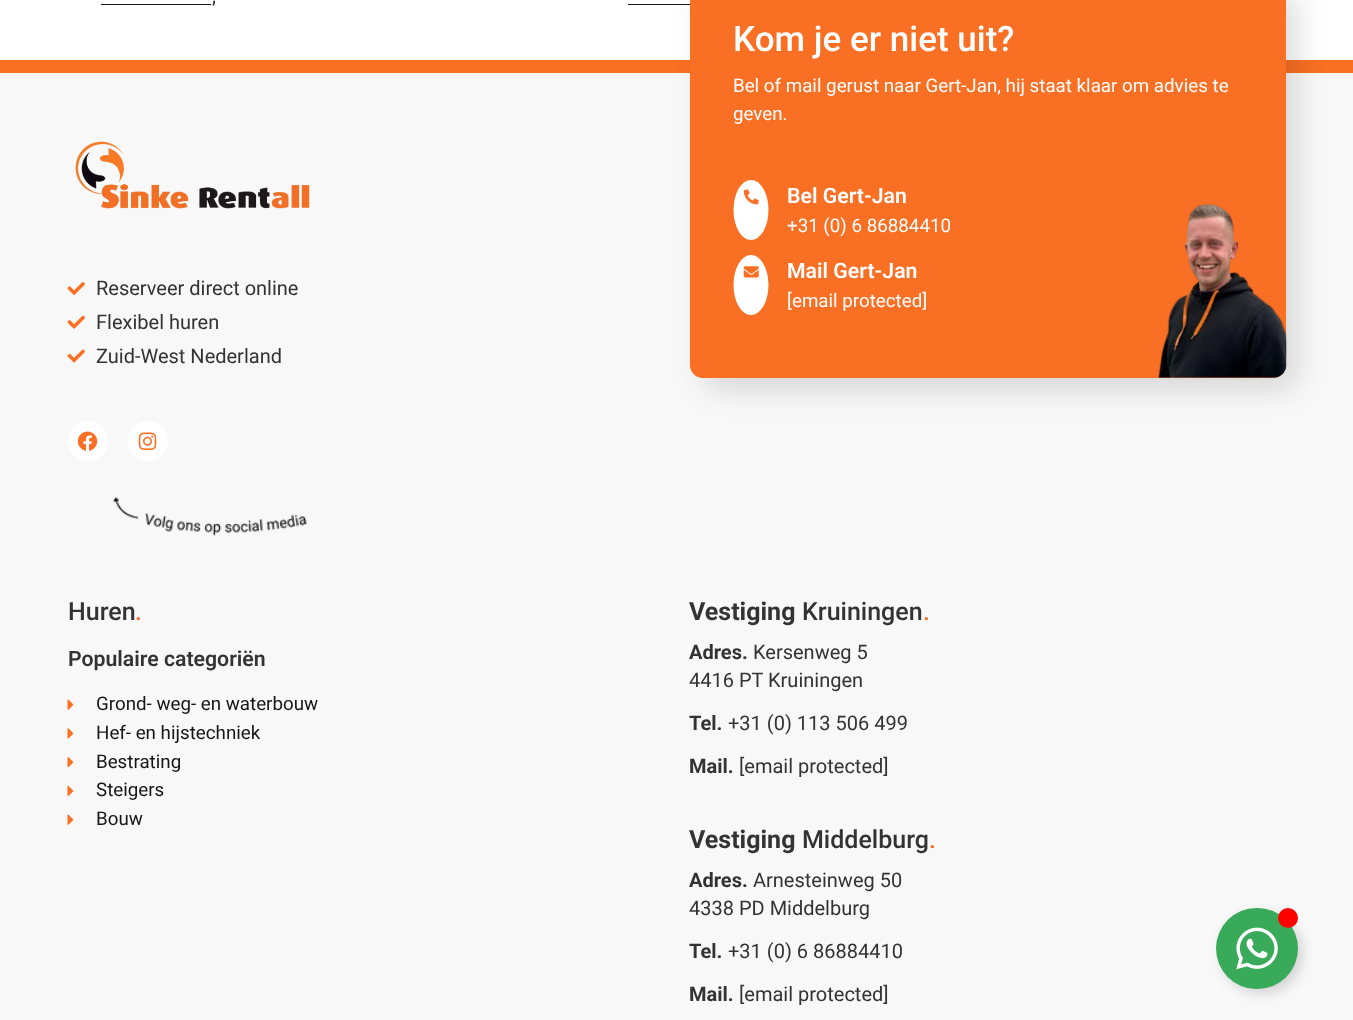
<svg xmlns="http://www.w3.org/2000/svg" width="1353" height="1020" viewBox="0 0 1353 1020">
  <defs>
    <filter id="blur1" x="-50%" y="-200%" width="200%" height="500%"><feGaussianBlur stdDeviation="15.5"/></filter>
    <filter id="blur2" x="-50%" y="-200%" width="200%" height="500%"><feGaussianBlur stdDeviation="6"/></filter>
  </defs>
  <rect width="100%" height="100%" fill="#ffffff"/>
  <rect x="101" y="4" width="110" height="1" fill="#161616"/>
  <text x="212" y="3" font-family="Roboto" font-size="20" fill="#333333">,</text>
  <rect x="628" y="4" width="67" height="1" fill="#161616"/>
  <rect x="0" y="73" width="1353" height="947" fill="#f8f8f8"/>
  <rect x="0" y="60" width="1353" height="13" fill="#f96f23"/>
  <rect x="705" y="-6" width="591" height="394" rx="10" fill="#000000" fill-opacity="0.15" filter="url(#blur1)"/>
  <rect x="690" y="-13" width="596" height="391" rx="13" fill="#f96f23"/>
  <text x="733" y="51" font-family="Roboto" font-size="35" font-weight="500" fill="#ffffff">Kom je er niet uit?</text>
  <text x="733" y="92" font-family="Roboto" font-size="18.75" fill="#ffffff">Bel of mail gerust naar Gert-Jan, hij staat klaar om advies te</text>
  <text x="733" y="120" font-family="Roboto" font-size="18.75" fill="#ffffff">geven.</text>
  <ellipse cx="751" cy="210" rx="17.5" ry="30" fill="#ffffff"/>
  <image x="743" y="189" width="16" height="16" href="img1.png"/>
  <text x="787" y="203" font-family="Roboto" font-size="21.25" font-weight="600" fill="#ffffff">Bel Gert-Jan</text>
  <text x="787" y="232" font-family="Roboto" font-size="18.75" fill="#ffffff">+31 (0) 6 86884410</text>
  <image x="1158" y="204" width="129" height="174" href="img2.png"/>
  <ellipse cx="751" cy="285" rx="17.5" ry="30" fill="#ffffff"/>
  <image x="743" y="266" width="16" height="12" href="img3.png"/>
  <text x="787" y="278" font-family="Roboto" font-size="21.25" font-weight="600" fill="#ffffff">Mail Gert-Jan</text>
  <text x="787" y="307" font-family="Roboto" font-size="18.75" fill="#ffffff">[email protected]</text>
  <image x="75" y="141" width="235" height="68" href="img4.png"/>
  <image x="67" y="282" width="18" height="13" href="img5.png"/>
  <text x="96" y="295" font-family="Roboto" font-size="20" fill="#333333">Reserveer direct online</text>
  <image x="67" y="315" width="18" height="14" href="img6.png"/>
  <text x="96" y="329" font-family="Roboto" font-size="20" fill="#333333">Flexibel huren</text>
  <image x="67" y="349" width="18" height="14" href="img7.png"/>
  <text x="96" y="363" font-family="Roboto" font-size="20" fill="#333333">Zuid-West Nederland</text>
  <circle cx="88" cy="441" r="20" fill="#ffffff"/>
  <image x="77" y="431" width="21" height="20" href="img8.png"/>
  <circle cx="148" cy="441" r="20" fill="#ffffff"/>
  <image x="138" y="432" width="19" height="18" href="img9.png"/>
  <image x="113" y="497" width="194" height="39" href="img10.png"/>
  <text x="68" y="620" font-family="Roboto" font-size="25" font-weight="500" fill="#333333">Huren</text>
  <text x="135" y="620" font-family="Roboto" font-size="25" font-weight="500" fill="#f96f23">.</text>
  <text x="68" y="666" font-family="Roboto" font-size="21.25" font-weight="600" fill="#333333">Populaire categoriën</text>
  <image x="67" y="699" width="7" height="11" href="img11.png"/>
  <text x="96" y="710" font-family="Roboto" font-size="18.75" fill="#161616">Grond- weg- en waterbouw</text>
  <image x="67" y="728" width="7" height="11" href="img12.png"/>
  <text x="96" y="739" font-family="Roboto" font-size="18.75" fill="#161616">Hef- en hijstechniek</text>
  <image x="67" y="757" width="7" height="11" href="img13.png"/>
  <text x="96" y="768" font-family="Roboto" font-size="18.75" fill="#161616">Bestrating</text>
  <image x="67" y="785" width="7" height="11" href="img14.png"/>
  <text x="96" y="796" font-family="Roboto" font-size="18.75" fill="#161616">Steigers</text>
  <image x="67" y="814" width="7" height="11" href="img11.png"/>
  <text x="96" y="825" font-family="Roboto" font-size="18.75" fill="#161616">Bouw</text>
  <text x="689" y="620" font-family="Roboto" font-size="25" font-weight="bold" fill="#333333">Vestiging</text>
  <text x="802" y="620" font-family="Roboto" font-size="25" font-weight="500" fill="#333333">Kruiningen</text>
  <text x="923" y="620" font-family="Roboto" font-size="25" font-weight="500" fill="#f96f23">.</text>
  <text x="689" y="659" font-family="Roboto" font-size="20" font-weight="bold" fill="#333333">Adres.</text>
  <text x="753" y="659" font-family="Roboto" font-size="20" fill="#333333">Kersenweg 5</text>
  <text x="689" y="687" font-family="Roboto" font-size="20" fill="#333333">4416 PT Kruiningen</text>
  <text x="689" y="730" font-family="Roboto" font-size="20" font-weight="bold" fill="#333333">Tel.</text>
  <text x="728" y="730" font-family="Roboto" font-size="20" fill="#333333">+31 (0) 113 506 499</text>
  <text x="689" y="773" font-family="Roboto" font-size="20" font-weight="bold" fill="#333333">Mail.</text>
  <text x="739" y="773" font-family="Roboto" font-size="20" fill="#333333">[email protected]</text>
  <text x="689" y="848" font-family="Roboto" font-size="25" font-weight="bold" fill="#333333">Vestiging</text>
  <text x="802" y="848" font-family="Roboto" font-size="25" font-weight="500" fill="#333333">Middelburg</text>
  <text x="929" y="848" font-family="Roboto" font-size="25" font-weight="500" fill="#f96f23">.</text>
  <text x="689" y="887" font-family="Roboto" font-size="20" font-weight="bold" fill="#333333">Adres.</text>
  <text x="753" y="887" font-family="Roboto" font-size="20" fill="#333333">Arnesteinweg 50</text>
  <text x="689" y="915" font-family="Roboto" font-size="20" fill="#333333">4338 PD Middelburg</text>
  <text x="689" y="958" font-family="Roboto" font-size="20" font-weight="bold" fill="#333333">Tel.</text>
  <text x="728" y="958" font-family="Roboto" font-size="20" fill="#333333">+31 (0) 6 86884410</text>
  <text x="689" y="1001" font-family="Roboto" font-size="20" font-weight="bold" fill="#333333">Mail.</text>
  <text x="739" y="1001" font-family="Roboto" font-size="20" fill="#333333">[email protected]</text>
  <rect x="1221" y="913" width="82" height="81" rx="40.5" fill="#000000" fill-opacity="0.15" filter="url(#blur2)"/>
  <rect x="1216" y="908" width="82" height="81" rx="40.5" fill="#39aa59"/>
  <circle cx="1288" cy="918" r="10" fill="#ff0000"/>
  <image x="1236" y="927" width="42" height="43" href="img15.png"/>
</svg>
